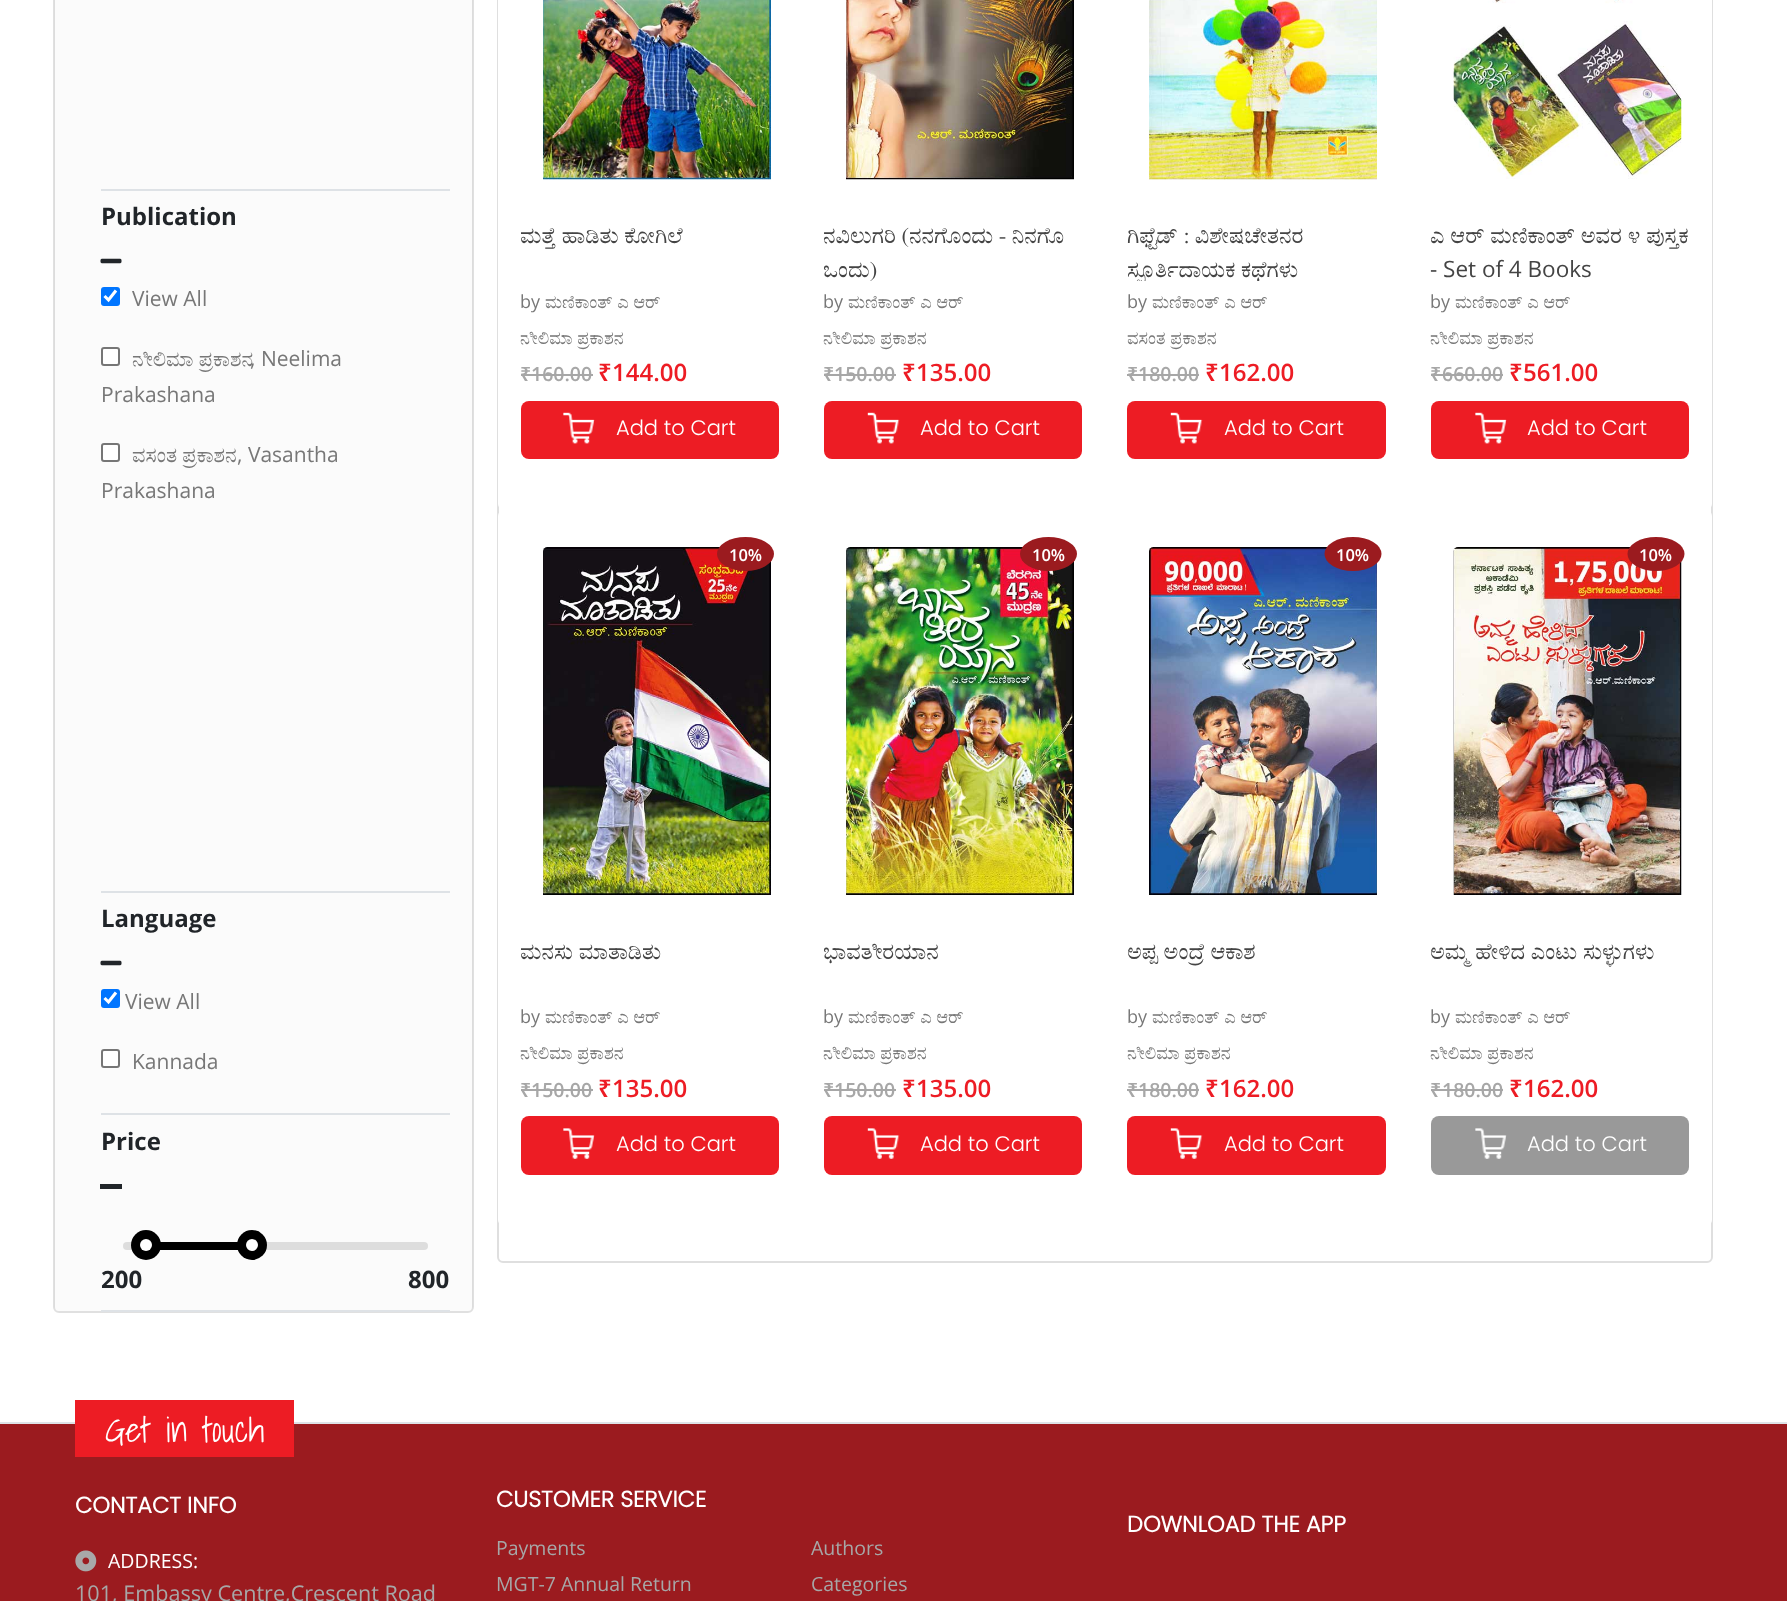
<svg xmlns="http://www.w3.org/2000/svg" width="1787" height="1601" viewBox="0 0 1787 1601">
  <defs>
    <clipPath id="clip1"><rect x="521" y="218" width="258" height="63"/></clipPath>
    <clipPath id="clip2"><rect x="1127" y="218" width="259" height="63"/></clipPath>
    <clipPath id="clip3"><rect x="521" y="933" width="258" height="63"/></clipPath>
    <clipPath id="clip4"><rect x="824" y="933" width="258" height="63"/></clipPath>
  </defs>
  <rect width="100%" height="100%" fill="#ffffff"/>
  <rect x="54" y="-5" width="419" height="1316" rx="5" fill="#fbfbfb"/>
  <rect x="54" y="-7" width="419" height="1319" rx="5" fill="none" stroke="#000000" stroke-opacity="0.12" stroke-width="2"/>
  <rect x="101" y="189" width="349" height="2" fill="#dee2e6"/>
  <rect x="101" y="891" width="349" height="2" fill="#dee2e6"/>
  <text x="101" y="225" font-family="Open Sans" font-size="24" font-weight="bold" fill="#212529">Publication</text>
  <image x="100" y="258" width="22" height="6" href="img1.png"/>
  <rect x="101" y="287" width="19" height="19" rx="3" fill="#0075ff"/>
  <path d="M104.5 296L108.5 300L116 290.5" fill="none" stroke="#ffffff" stroke-width="3.1"/>
  <text x="132" y="306" font-family="Open Sans" font-size="21" fill="#777777">View All</text>
  <rect x="102" y="348" width="17" height="17" rx="2" fill="#ffffff" stroke="#767676" stroke-width="2"/>
  <text x="132" y="366" font-family="FreeSerif" font-size="21" fill="#777777">ನೀಲಿಮಾ ಪ್ರಕಾಶನ</text>
  <text x="250" y="366" font-family="Open Sans" font-size="21" fill="#777777">, Neelima</text>
  <text x="101" y="402" font-family="Open Sans" font-size="21" fill="#777777">Prakashana</text>
  <rect x="102" y="444" width="17" height="17" rx="2" fill="#ffffff" stroke="#767676" stroke-width="2"/>
  <text x="132" y="462" font-family="FreeSerif" font-size="21" fill="#777777">ವಸಂತ ಪ್ರಕಾಶನ</text>
  <text x="237" y="462" font-family="Open Sans" font-size="21" fill="#777777">, Vasantha</text>
  <text x="101" y="498" font-family="Open Sans" font-size="21" fill="#777777">Prakashana</text>
  <rect x="101" y="1113" width="349" height="2" fill="#dee2e6"/>
  <text x="101" y="927" font-family="Open Sans" font-size="24" font-weight="bold" fill="#212529">Language</text>
  <image x="100" y="960" width="22" height="6" href="img1.png"/>
  <rect x="101" y="989" width="19" height="19" rx="3" fill="#0075ff"/>
  <path d="M104.5 998L108.5 1002L116 992.5" fill="none" stroke="#ffffff" stroke-width="3.1"/>
  <text x="125" y="1009" font-family="Open Sans" font-size="21" fill="#777777">View All</text>
  <rect x="102" y="1050" width="17" height="17" rx="2" fill="#ffffff" stroke="#767676" stroke-width="2"/>
  <text x="132" y="1069" font-family="Open Sans" font-size="21" fill="#777777">Kannada</text>
  <rect x="101" y="1310" width="349" height="2" fill="#dee2e6"/>
  <text x="101" y="1150" font-family="Open Sans" font-size="24" font-weight="bold" fill="#212529">Price</text>
  <rect x="100" y="1184" width="22" height="5" fill="#212529"/>
  <rect x="123" y="1242" width="305" height="8" rx="4" fill="#dddddd"/>
  <rect x="153" y="1242" width="92" height="8" fill="#000000"/>
  <circle cx="146" cy="1245" r="15" fill="#000000"/>
  <circle cx="146" cy="1245" r="6" fill="#ffffff"/>
  <circle cx="252" cy="1245" r="15" fill="#000000"/>
  <circle cx="252" cy="1245" r="6" fill="#ffffff"/>
  <text x="101" y="1288" font-family="Open Sans" font-size="24" font-weight="bold" fill="#212529">200</text>
  <text x="408" y="1288" font-family="Open Sans" font-size="24" font-weight="bold" fill="#212529">800</text>
  <rect x="498" y="-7" width="1214" height="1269" rx="5" fill="none" stroke="#dfdfdf" stroke-width="2"/>
  <rect x="498" y="-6" width="303" height="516" rx="6" fill="#ffffff"/>
  <image x="543" y="0" width="228" height="180" href="img2.png"/>
  <g clip-path="url(#clip1)">
    <text x="520" y="243" font-family="FreeSerif" font-size="22.5" fill="#444444">ಮತ್ತೆ ಹಾಡಿತು ಕೋಗಿಲೆ</text>
  </g>
  <text x="520" y="308" font-family="Open Sans" font-size="18" fill="#777777">by</text>
  <text x="545" y="308" font-family="FreeSerif" font-size="18" fill="#777777">ಮಣಿಕಾಂತ್ ಎ ಆರ್</text>
  <text x="520" y="344" font-family="FreeSerif" font-size="18" fill="#777777">ನೀಲಿಮಾ ಪ್ರಕಾಶನ</text>
  <text x="520" y="381" font-family="Noto Sans" font-size="19.5" font-weight="600" fill="#a7a7a7">₹</text>
  <rect x="521" y="374" width="72" height="2" fill="#a7a7a7"/>
  <text x="531" y="381" font-family="Open Sans" font-size="19.5" font-weight="600" fill="#a7a7a7">160.00</text>
  <text x="598" y="381" font-family="Noto Sans" font-size="24" font-weight="600" fill="#ed1c24">₹</text>
  <text x="612" y="381" font-family="Open Sans" font-size="24" font-weight="600" fill="#ed1c24">144.00</text>
  <rect x="521" y="401" width="258" height="58" rx="8" fill="#ed1c24"/>
  <image x="563" y="412" width="32" height="32" href="img3.png"/>
  <text x="616" y="435" font-family="Poppins" font-size="21" font-weight="300" fill="#ffffff">Add to Cart</text>
  <image x="846" y="0" width="228" height="180" href="img4.png"/>
  <text x="823" y="243" font-family="FreeSerif" font-size="22.5" fill="#444444">ನವಿಲುಗರಿ (ನನಗೊಂದು - ನಿನಗೊ</text>
  <text x="823" y="277" font-family="FreeSerif" font-size="22.5" fill="#444444">ಒಂದು)</text>
  <text x="823" y="308" font-family="Open Sans" font-size="18" fill="#777777">by</text>
  <text x="848" y="308" font-family="FreeSerif" font-size="18" fill="#777777">ಮಣಿಕಾಂತ್ ಎ ಆರ್</text>
  <text x="823" y="344" font-family="FreeSerif" font-size="18" fill="#777777">ನೀಲಿಮಾ ಪ್ರಕಾಶನ</text>
  <text x="823" y="381" font-family="Noto Sans" font-size="19.5" font-weight="600" fill="#a7a7a7">₹</text>
  <rect x="824" y="374" width="72" height="2" fill="#a7a7a7"/>
  <text x="834" y="381" font-family="Open Sans" font-size="19.5" font-weight="600" fill="#a7a7a7">150.00</text>
  <text x="902" y="381" font-family="Noto Sans" font-size="24" font-weight="600" fill="#ed1c24">₹</text>
  <text x="916" y="381" font-family="Open Sans" font-size="24" font-weight="600" fill="#ed1c24">135.00</text>
  <rect x="824" y="401" width="258" height="58" rx="8" fill="#ed1c24"/>
  <image x="867" y="412" width="33" height="32" href="img5.png"/>
  <text x="920" y="435" font-family="Poppins" font-size="21" font-weight="300" fill="#ffffff">Add to Cart</text>
  <image x="1149" y="0" width="228" height="180" href="img6.png"/>
  <text x="1127" y="243" font-family="FreeSerif" font-size="22.5" fill="#444444">ಗಿಫ್ಟೆಡ್ : ವಿಶೇಷಚೇತನರ</text>
  <g clip-path="url(#clip2)">
    <text x="1127" y="277" font-family="FreeSerif" font-size="22.5" fill="#444444">ಸ್ಫೂರ್ತಿದಾಯಕ ಕಥೆಗಳು</text>
  </g>
  <text x="1127" y="308" font-family="Open Sans" font-size="18" fill="#777777">by</text>
  <text x="1152" y="308" font-family="FreeSerif" font-size="18" fill="#777777">ಮಣಿಕಾಂತ್ ಎ ಆರ್</text>
  <text x="1127" y="344" font-family="FreeSerif" font-size="18" fill="#777777">ವಸಂತ ಪ್ರಕಾಶನ</text>
  <text x="1127" y="381" font-family="Noto Sans" font-size="19.5" font-weight="600" fill="#a7a7a7">₹</text>
  <rect x="1127" y="374" width="72" height="2" fill="#a7a7a7"/>
  <text x="1138" y="381" font-family="Open Sans" font-size="19.5" font-weight="600" fill="#a7a7a7">180.00</text>
  <text x="1205" y="381" font-family="Noto Sans" font-size="24" font-weight="600" fill="#ed1c24">₹</text>
  <text x="1219" y="381" font-family="Open Sans" font-size="24" font-weight="600" fill="#ed1c24">162.00</text>
  <rect x="1127" y="401" width="259" height="58" rx="8" fill="#ed1c24"/>
  <image x="1170" y="412" width="33" height="32" href="img5.png"/>
  <text x="1224" y="435" font-family="Poppins" font-size="21" font-weight="300" fill="#ffffff">Add to Cart</text>
  <rect x="1409" y="-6" width="303" height="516" rx="6" fill="#ffffff"/>
  <image x="1453" y="0" width="229" height="179" href="img7.png"/>
  <text x="1430" y="243" word-spacing="0.25" font-family="FreeSerif" font-size="22.5" fill="#444444">ಎ ಆರ್ ಮಣಿಕಾಂತ್ ಅವರ ೪ ಪುಸ್ತಕ</text>
  <text x="1430" y="277" font-family="Open Sans" font-size="22.5" fill="#444444">- Set of 4 Books</text>
  <text x="1430" y="308" font-family="Open Sans" font-size="18" fill="#777777">by</text>
  <text x="1455" y="308" font-family="FreeSerif" font-size="18" fill="#777777">ಮಣಿಕಾಂತ್ ಎ ಆರ್</text>
  <text x="1430" y="344" font-family="FreeSerif" font-size="18" fill="#777777">ನೀಲಿಮಾ ಪ್ರಕಾಶನ</text>
  <text x="1430" y="381" font-family="Noto Sans" font-size="19.5" font-weight="600" fill="#a7a7a7">₹</text>
  <rect x="1431" y="374" width="72" height="2" fill="#a7a7a7"/>
  <text x="1442" y="381" font-family="Open Sans" font-size="19.5" font-weight="600" fill="#a7a7a7">660.00</text>
  <text x="1509" y="381" font-family="Noto Sans" font-size="24" font-weight="600" fill="#ed1c24">₹</text>
  <text x="1523" y="381" font-family="Open Sans" font-size="24" font-weight="600" fill="#ed1c24">561.00</text>
  <rect x="1431" y="401" width="258" height="58" rx="8" fill="#ed1c24"/>
  <image x="1475" y="412" width="32" height="32" href="img3.png"/>
  <text x="1527" y="435" font-family="Poppins" font-size="21" font-weight="300" fill="#ffffff">Add to Cart</text>
  <rect x="498" y="510" width="303" height="716" rx="6" fill="#ffffff"/>
  <image x="543" y="547" width="228" height="348" href="img8.png"/>
  <ellipse cx="745.5" cy="554" rx="28.5" ry="17" fill="#9b1b1f"/>
  <text x="729" y="561" font-family="Open Sans" font-size="16.5" font-weight="600" fill="#ffffff">10%</text>
  <g clip-path="url(#clip3)">
    <text x="520" y="959" font-family="FreeSerif" font-size="22.5" fill="#444444">ಮನಸು ಮಾತಾಡಿತು</text>
  </g>
  <text x="520" y="1023" font-family="Open Sans" font-size="18" fill="#777777">by</text>
  <text x="545" y="1023" font-family="FreeSerif" font-size="18" fill="#777777">ಮಣಿಕಾಂತ್ ಎ ಆರ್</text>
  <text x="520" y="1059" font-family="FreeSerif" font-size="18" fill="#777777">ನೀಲಿಮಾ ಪ್ರಕಾಶನ</text>
  <text x="520" y="1097" font-family="Noto Sans" font-size="19.5" font-weight="600" fill="#a7a7a7">₹</text>
  <rect x="521" y="1089" width="72" height="2" fill="#a7a7a7"/>
  <text x="531" y="1097" font-family="Open Sans" font-size="19.5" font-weight="600" fill="#a7a7a7">150.00</text>
  <text x="598" y="1097" font-family="Noto Sans" font-size="24" font-weight="600" fill="#ed1c24">₹</text>
  <text x="612" y="1097" font-family="Open Sans" font-size="24" font-weight="600" fill="#ed1c24">135.00</text>
  <rect x="521" y="1116" width="258" height="59" rx="8" fill="#ed1c24"/>
  <image x="563" y="1128" width="32" height="31" href="img9.png"/>
  <text x="616" y="1151" font-family="Poppins" font-size="21" font-weight="300" fill="#ffffff">Add to Cart</text>
  <image x="846" y="547" width="228" height="348" href="img10.png"/>
  <ellipse cx="1048.5" cy="554" rx="28.5" ry="17" fill="#9b1b1f"/>
  <text x="1032" y="561" font-family="Open Sans" font-size="16.5" font-weight="600" fill="#ffffff">10%</text>
  <g clip-path="url(#clip4)">
    <text x="823" y="959" font-family="FreeSerif" font-size="22.5" fill="#444444">ಭಾವತೀರಯಾನ</text>
  </g>
  <text x="823" y="1023" font-family="Open Sans" font-size="18" fill="#777777">by</text>
  <text x="848" y="1023" font-family="FreeSerif" font-size="18" fill="#777777">ಮಣಿಕಾಂತ್ ಎ ಆರ್</text>
  <text x="823" y="1059" font-family="FreeSerif" font-size="18" fill="#777777">ನೀಲಿಮಾ ಪ್ರಕಾಶನ</text>
  <text x="823" y="1097" font-family="Noto Sans" font-size="19.5" font-weight="600" fill="#a7a7a7">₹</text>
  <rect x="824" y="1089" width="72" height="2" fill="#a7a7a7"/>
  <text x="834" y="1097" font-family="Open Sans" font-size="19.5" font-weight="600" fill="#a7a7a7">150.00</text>
  <text x="902" y="1097" font-family="Noto Sans" font-size="24" font-weight="600" fill="#ed1c24">₹</text>
  <text x="916" y="1097" font-family="Open Sans" font-size="24" font-weight="600" fill="#ed1c24">135.00</text>
  <rect x="824" y="1116" width="258" height="59" rx="8" fill="#ed1c24"/>
  <image x="867" y="1128" width="33" height="31" href="img11.png"/>
  <text x="920" y="1151" font-family="Poppins" font-size="21" font-weight="300" fill="#ffffff">Add to Cart</text>
  <image x="1149" y="547" width="228" height="348" href="img12.png"/>
  <ellipse cx="1353" cy="554" rx="28.5" ry="17" fill="#9b1b1f"/>
  <text x="1336" y="561" font-family="Open Sans" font-size="16.5" font-weight="600" fill="#ffffff">10%</text>
  <text x="1127" y="959" font-family="FreeSerif" font-size="22.5" fill="#444444">ಅಪ್ಪ ಅಂದ್ರೆ ಆಕಾಶ</text>
  <text x="1127" y="1023" font-family="Open Sans" font-size="18" fill="#777777">by</text>
  <text x="1152" y="1023" font-family="FreeSerif" font-size="18" fill="#777777">ಮಣಿಕಾಂತ್ ಎ ಆರ್</text>
  <text x="1127" y="1059" font-family="FreeSerif" font-size="18" fill="#777777">ನೀಲಿಮಾ ಪ್ರಕಾಶನ</text>
  <text x="1127" y="1097" font-family="Noto Sans" font-size="19.5" font-weight="600" fill="#a7a7a7">₹</text>
  <rect x="1127" y="1089" width="72" height="2" fill="#a7a7a7"/>
  <text x="1138" y="1097" font-family="Open Sans" font-size="19.5" font-weight="600" fill="#a7a7a7">180.00</text>
  <text x="1205" y="1097" font-family="Noto Sans" font-size="24" font-weight="600" fill="#ed1c24">₹</text>
  <text x="1219" y="1097" font-family="Open Sans" font-size="24" font-weight="600" fill="#ed1c24">162.00</text>
  <rect x="1127" y="1116" width="259" height="59" rx="8" fill="#ed1c24"/>
  <image x="1170" y="1128" width="33" height="31" href="img11.png"/>
  <text x="1224" y="1151" font-family="Poppins" font-size="21" font-weight="300" fill="#ffffff">Add to Cart</text>
  <rect x="1409" y="510" width="303" height="716" rx="6" fill="#ffffff"/>
  <image x="1453" y="547" width="229" height="348" href="img13.png"/>
  <ellipse cx="1656" cy="554" rx="28.5" ry="17" fill="#9b1b1f"/>
  <text x="1639" y="561" font-family="Open Sans" font-size="16.5" font-weight="600" fill="#ffffff">10%</text>
  <text x="1430" y="959" word-spacing="0.25" font-family="FreeSerif" font-size="22.5" fill="#444444">ಅಮ್ಮ ಹೇಳಿದ ಎಂಟು ಸುಳ್ಳುಗಳು</text>
  <text x="1430" y="1023" font-family="Open Sans" font-size="18" fill="#777777">by</text>
  <text x="1455" y="1023" font-family="FreeSerif" font-size="18" fill="#777777">ಮಣಿಕಾಂತ್ ಎ ಆರ್</text>
  <text x="1430" y="1059" font-family="FreeSerif" font-size="18" fill="#777777">ನೀಲಿಮಾ ಪ್ರಕಾಶನ</text>
  <text x="1430" y="1097" font-family="Noto Sans" font-size="19.5" font-weight="600" fill="#a7a7a7">₹</text>
  <rect x="1431" y="1089" width="72" height="2" fill="#a7a7a7"/>
  <text x="1442" y="1097" font-family="Open Sans" font-size="19.5" font-weight="600" fill="#a7a7a7">180.00</text>
  <text x="1509" y="1097" font-family="Noto Sans" font-size="24" font-weight="600" fill="#ed1c24">₹</text>
  <text x="1523" y="1097" font-family="Open Sans" font-size="24" font-weight="600" fill="#ed1c24">162.00</text>
  <rect x="1431" y="1116" width="258" height="59" rx="8" fill="#999999"/>
  <image x="1475" y="1128" width="32" height="31" href="img14.png"/>
  <text x="1527" y="1151" font-family="Poppins" font-size="21" font-weight="300" fill="#ffffff">Add to Cart</text>
  <rect x="0" y="1424" width="1787" height="177" fill="#9b1b1f"/>
  <rect x="0" y="1422" width="1787" height="2" fill="#dee2e6"/>
  <rect x="75" y="1400" width="219" height="57" fill="#ed1c24"/>
  <text x="105" y="1442" font-family="Shadows Into Light" font-size="34.5" fill="#ffffff">Get in touch</text>
  <text x="75" y="1513" font-family="Poppins" font-size="22.5" font-weight="bold" fill="#ffffff">CONTACT INFO</text>
  <image x="75" y="1550" width="22" height="22" href="img15.png"/>
  <text x="108" y="1568" font-family="Open Sans" font-size="19.5" fill="#ffffff">ADDRESS:</text>
  <text x="75" y="1601" font-family="Open Sans" font-size="21.6" fill="#a7a7a7">101, Embassy Centre,Crescent Road</text>
  <text x="496" y="1507" font-family="Poppins" font-size="22.5" font-weight="bold" fill="#ffffff">CUSTOMER SERVICE</text>
  <text x="1127" y="1532" font-family="Poppins" font-size="22.5" font-weight="bold" fill="#ffffff">DOWNLOAD THE APP</text>
  <text x="496" y="1555" font-family="Open Sans" font-size="19.5" fill="#a7a7a7">Payments</text>
  <text x="496" y="1591" font-family="Open Sans" font-size="19.5" fill="#a7a7a7">MGT-7 Annual Return</text>
  <text x="811" y="1555" font-family="Open Sans" font-size="19.5" fill="#a7a7a7">Authors</text>
  <text x="811" y="1591" font-family="Open Sans" font-size="19.5" fill="#a7a7a7">Categories</text>
</svg>
